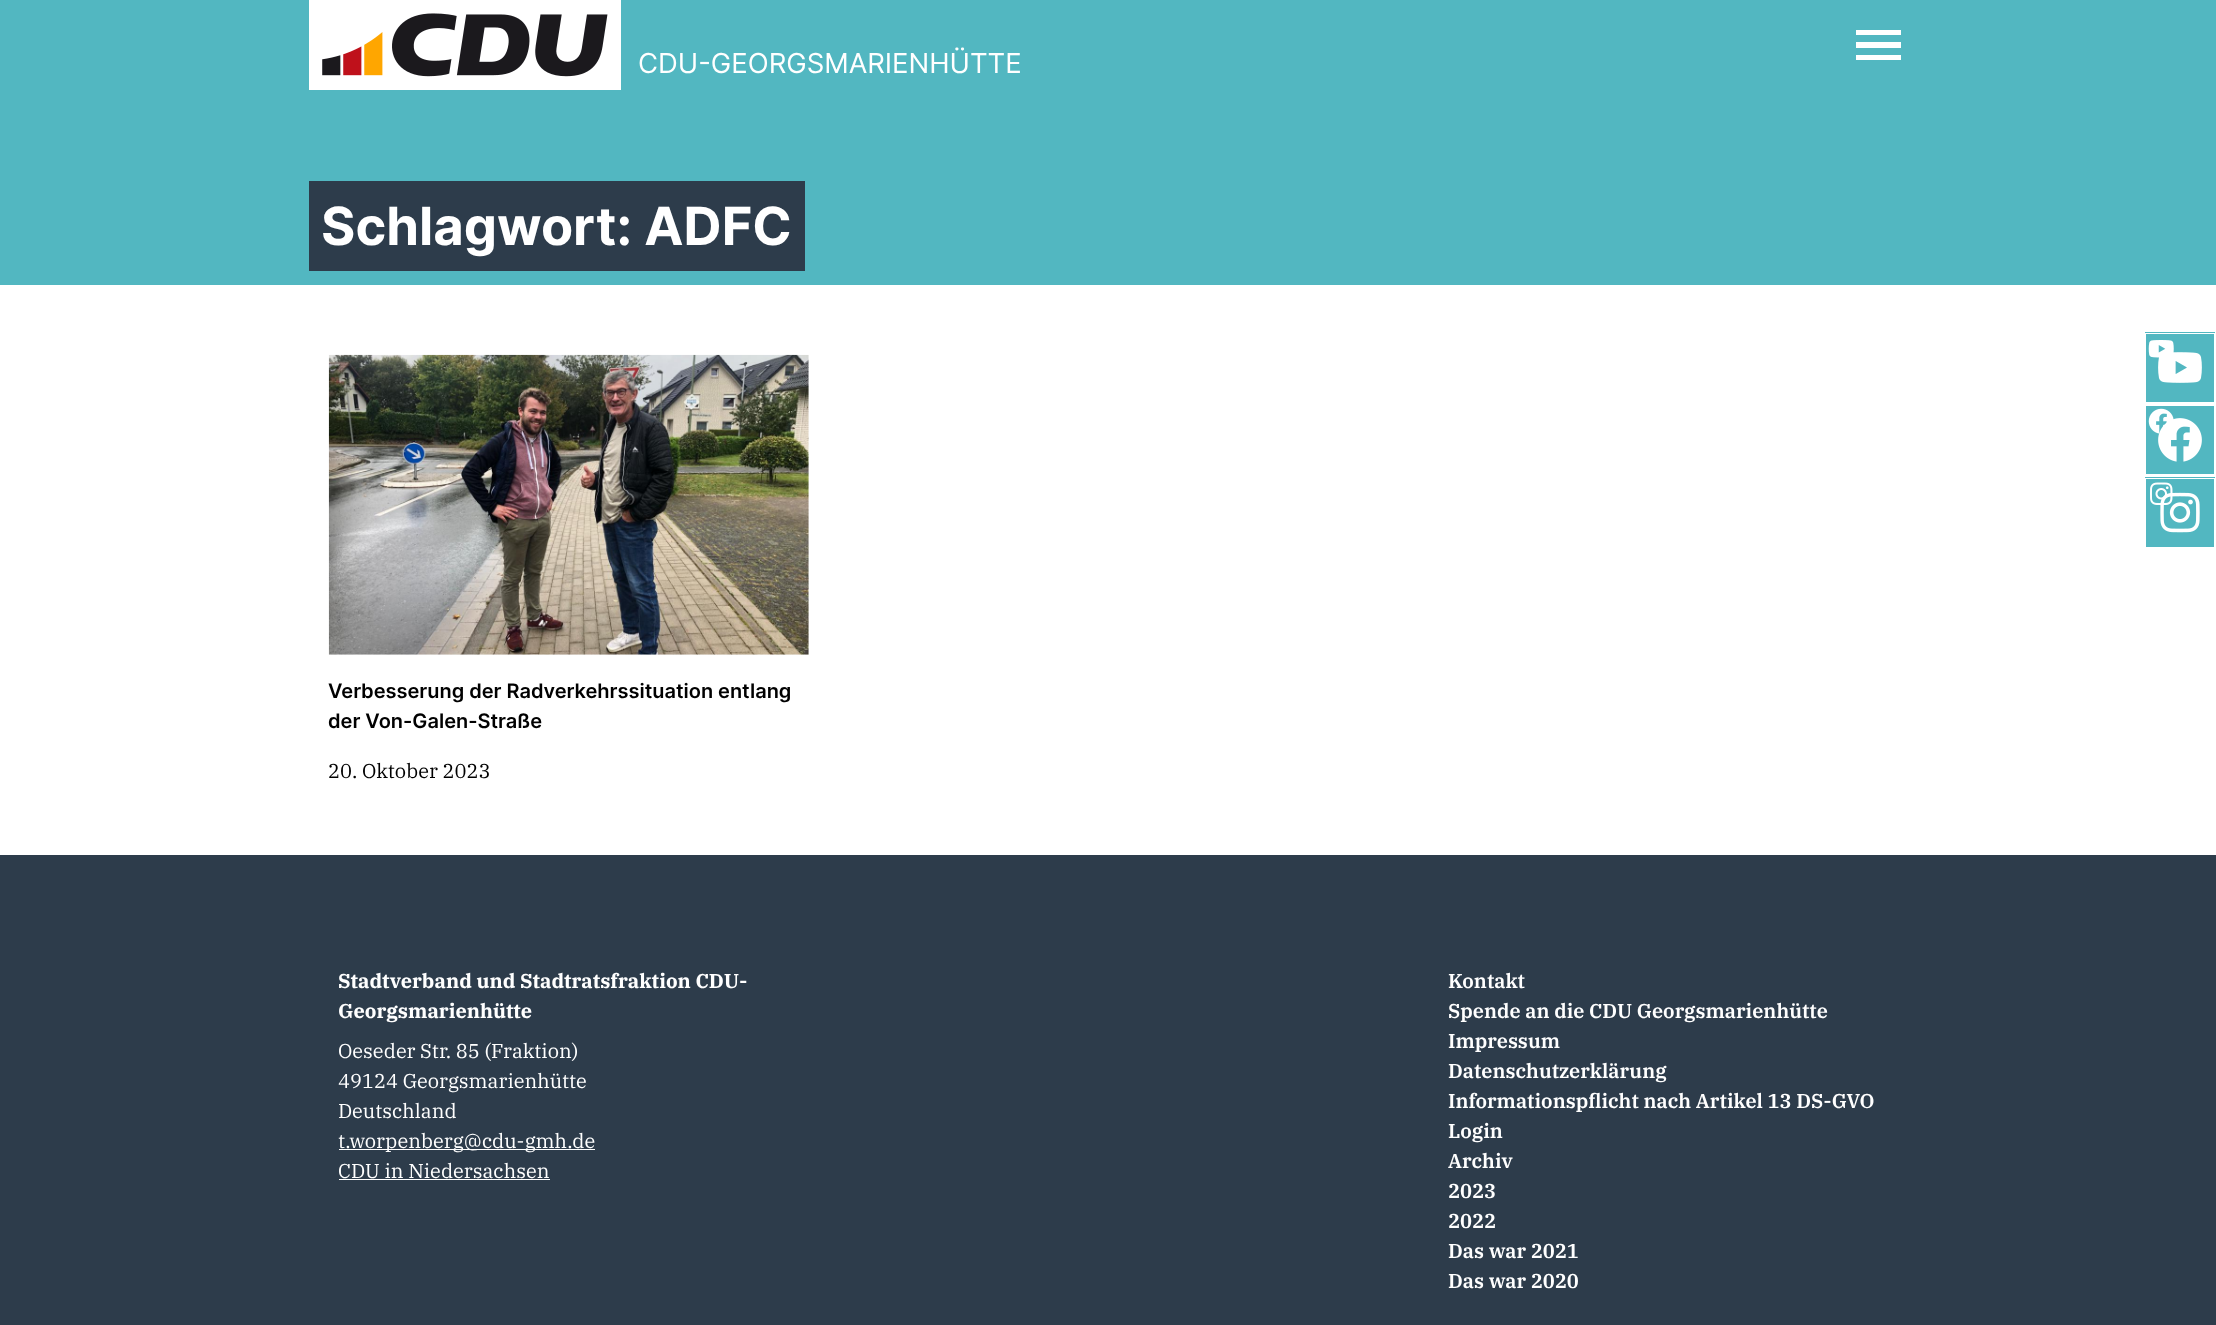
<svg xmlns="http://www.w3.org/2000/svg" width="2216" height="1325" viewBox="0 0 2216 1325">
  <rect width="100%" height="100%" fill="#ffffff"/>
  <rect x="0" y="0" width="2216" height="285" fill="#52b7c1"/>
  <image x="309" y="0" width="312" height="90" href="img1.png"/>
  <text x="638" y="73" font-family="Inter" font-size="27.5" fill="#ffffff">CDU-GEORGSMARIENHÜTTE</text>
  <path d="M1901 60H1856V55H1901ZM1901 48H1856V42H1901ZM1901 35H1856V30H1901Z" fill="#ffffff"/>
  <rect x="309" y="181" width="496" height="90" fill="#2d3c4b"/>
  <text x="321" y="245" font-family="Inter" font-size="52.5" font-weight="bold" fill="#ffffff">Schlagwort: ADFC</text>
  <rect x="2145" y="332" width="70" height="215" fill="#52b7c1"/>
  <rect x="2144.5" y="331.5" width="71" height="72" fill="none" stroke="#ffffff"/>
  <image x="2158" y="352" width="44" height="31" href="img2.png"/>
  <rect x="2145.5" y="333.5" width="69" height="69" fill="none" stroke="#ffffff"/>
  <image x="2148" y="340" width="26" height="18" href="img3.png"/>
  <rect x="2144.5" y="404.5" width="71" height="71" fill="none" stroke="#ffffff"/>
  <image x="2158" y="418" width="44" height="44" href="img4.png"/>
  <rect x="2145.5" y="405.5" width="69" height="69" fill="none" stroke="#ffffff"/>
  <image x="2148" y="408" width="26" height="26" href="img5.png"/>
  <rect x="2144.5" y="476.5" width="71" height="72" fill="none" stroke="#ffffff"/>
  <image x="2160" y="492" width="40" height="41" href="img6.png"/>
  <rect x="2145.5" y="478.5" width="69" height="69" fill="none" stroke="#ffffff"/>
  <image x="2150" y="482" width="23" height="24" href="img7.png"/>
  <image x="328" y="354" width="481" height="301" href="img8.png"/>
  <text x="328" y="698" font-family="Inter" font-size="20" font-weight="600" fill="#000000">Verbesserung der Radverkehrssituation entlang</text>
  <text x="328" y="728" font-family="Inter" font-size="20" font-weight="600" fill="#000000">der Von-Galen-Straße</text>
  <text x="328" y="778" font-family="IBM Plex Serif" font-size="20" fill="#000000">20. Oktober 2023</text>
  <rect x="0" y="855" width="2216" height="470" fill="#2d3c4b"/>
  <text x="338" y="988" font-family="IBM Plex Serif" font-size="20" font-weight="bold" fill="#ffffff">Stadtverband und Stadtratsfraktion CDU-</text>
  <text x="338" y="1018" font-family="IBM Plex Serif" font-size="20" font-weight="bold" fill="#ffffff">Georgsmarienhütte</text>
  <text x="338" y="1058" font-family="IBM Plex Serif" font-size="20" fill="#ffffff">Oeseder Str. 85 (Fraktion)</text>
  <text x="338" y="1088" font-family="IBM Plex Serif" font-size="20" fill="#ffffff">49124 Georgsmarienhütte</text>
  <text x="338" y="1118" font-family="IBM Plex Serif" font-size="20" fill="#ffffff">Deutschland</text>
  <rect x="339" y="1149" width="256" height="1" fill="#ffffff"/>
  <text x="338" y="1148" font-family="IBM Plex Serif" font-size="20" fill="#ffffff">t.worpenberg@cdu-gmh.de</text>
  <text x="338" y="1178" font-family="IBM Plex Serif" font-size="20" fill="#ffffff">CDU in Niedersachsen</text>
  <rect x="339" y="1179" width="211" height="1" fill="#ffffff"/>
  <text x="1448" y="988" font-family="IBM Plex Serif" font-size="20" font-weight="600" fill="#ffffff">Kontakt</text>
  <text x="1448" y="1018" font-family="IBM Plex Serif" font-size="20" font-weight="600" fill="#ffffff">Spende an die CDU Georgsmarienhütte</text>
  <text x="1448" y="1048" font-family="IBM Plex Serif" font-size="20" font-weight="600" fill="#ffffff">Impressum</text>
  <text x="1448" y="1078" font-family="IBM Plex Serif" font-size="20" font-weight="600" fill="#ffffff">Datenschutzerklärung</text>
  <text x="1448" y="1108" font-family="IBM Plex Serif" font-size="20" font-weight="600" fill="#ffffff">Informationspflicht nach Artikel 13 DS-GVO</text>
  <text x="1448" y="1138" font-family="IBM Plex Serif" font-size="20" font-weight="600" fill="#ffffff">Login</text>
  <text x="1448" y="1168" font-family="IBM Plex Serif" font-size="20" font-weight="600" fill="#ffffff">Archiv</text>
  <text x="1448" y="1198" font-family="IBM Plex Serif" font-size="20" font-weight="600" fill="#ffffff">2023</text>
  <text x="1448" y="1228" font-family="IBM Plex Serif" font-size="20" font-weight="600" fill="#ffffff">2022</text>
  <text x="1448" y="1258" font-family="IBM Plex Serif" font-size="20" font-weight="600" fill="#ffffff">Das war 2021</text>
  <text x="1448" y="1288" font-family="IBM Plex Serif" font-size="20" font-weight="600" fill="#ffffff">Das war 2020</text>
</svg>
